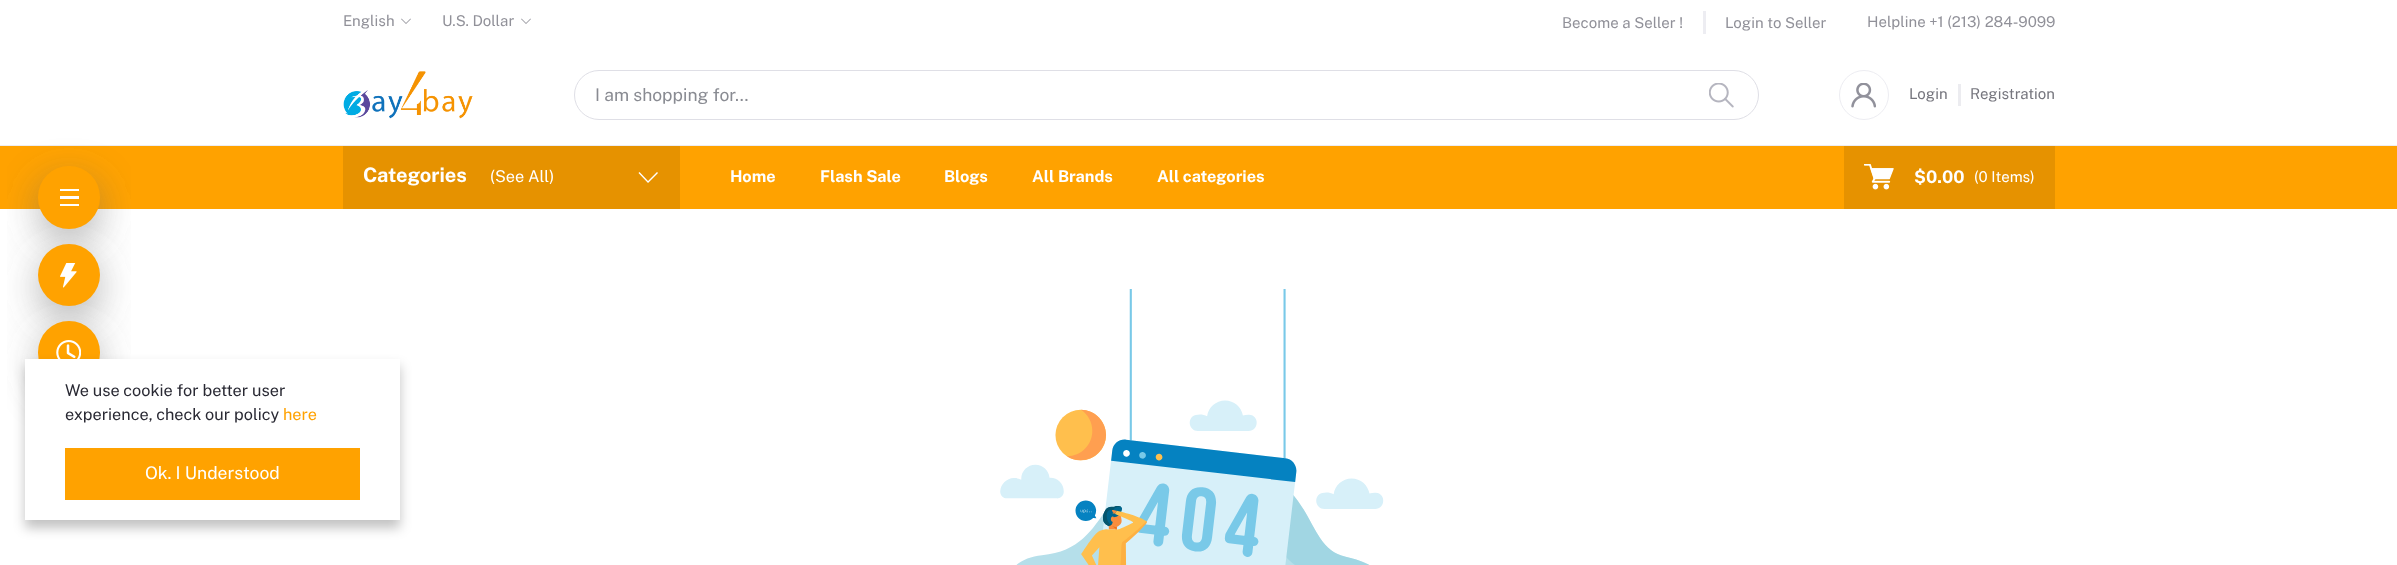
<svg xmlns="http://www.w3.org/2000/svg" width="2397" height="565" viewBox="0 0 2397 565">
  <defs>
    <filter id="blur1" x="-50%" y="-200%" width="200%" height="500%"><feGaussianBlur stdDeviation="19"/></filter>
    <filter id="blur2" x="-50%" y="-200%" width="200%" height="500%"><feGaussianBlur stdDeviation="6"/></filter>
  </defs>
  <rect width="100%" height="100%" fill="#ffffff"/>
  <text x="343" y="26" font-family="Public Sans" font-size="15" fill="#919199">English</text>
  <image x="401" y="18" width="10" height="6" href="img1.png"/>
  <text x="442" y="26" font-family="Public Sans" font-size="15" fill="#919199">U.S. Dollar</text>
  <image x="521" y="18" width="10" height="6" href="img1.png"/>
  <rect x="1703" y="11" width="3" height="23" fill="#ededf2"/>
  <text x="1562" y="28" font-family="Public Sans" font-size="15" fill="#919199">Become a Seller !</text>
  <text x="1725" y="28" font-family="Public Sans" font-size="15" fill="#919199">Login to Seller</text>
  <text x="1867" y="27" font-family="Public Sans" font-size="15" fill="#919199">Helpline +1 (213) 284-9099</text>
  <rect x="0" y="145" width="2397" height="1" fill="#ededf2"/>
  <image x="343" y="71" width="130" height="48" href="img2.png"/>
  <rect x="574.5" y="70.5" width="1184" height="49" rx="24.5" fill="none" stroke="#dfdfe6"/>
  <text x="595" y="101" font-family="Public Sans" font-size="17.5" fill="#898b92">I am shopping for...</text>
  <image x="1709" y="83" width="25" height="25" href="img3.png"/>
  <circle cx="1864" cy="95" r="24.5" fill="none" stroke="#ededf2"/>
  <image x="1851" y="83" width="25" height="25" href="img4.png"/>
  <rect x="1958" y="84" width="3" height="22" fill="#ececf0"/>
  <text x="1909" y="99" font-family="Public Sans" font-size="15" fill="#76767e">Login</text>
  <text x="1970" y="99" font-family="Public Sans" font-size="15" fill="#76767e">Registration</text>
  <rect x="0" y="146" width="2397" height="63" fill="#ffa200"/>
  <rect x="343" y="146" width="337" height="63" fill="#e69200"/>
  <text x="363" y="182" font-family="Public Sans" font-size="20" font-weight="bold" fill="#ffffff">Categories</text>
  <text x="490" y="182" font-family="Public Sans" font-size="16.25" fill="#ffffff">(See All)</text>
  <path d="M639.5 172L638.5 173L648 183L658 173L657 172L648 181Z" fill="#ffffff"/>
  <text x="730" y="182" font-family="Public Sans" font-size="16.25" font-weight="bold" fill="#ffffff">Home</text>
  <text x="820" y="182" font-family="Public Sans" font-size="16.25" font-weight="bold" fill="#ffffff">Flash Sale</text>
  <text x="944" y="182" font-family="Public Sans" font-size="16.25" font-weight="bold" fill="#ffffff">Blogs</text>
  <text x="1032" y="182" font-family="Public Sans" font-size="16.25" font-weight="bold" fill="#ffffff">All Brands</text>
  <text x="1157" y="182" font-family="Public Sans" font-size="16.25" font-weight="bold" fill="#ffffff">All categories</text>
  <rect x="1844" y="146" width="211" height="63" fill="#e69200"/>
  <image x="1864" y="164" width="30" height="26" href="img5.png"/>
  <text x="1914" y="183" font-family="Public Sans" font-size="17.5" font-weight="bold" fill="#ffffff">$0.00</text>
  <text x="1974" y="182" font-family="Public Sans" font-size="15" fill="#ffffff">(0 Items)</text>
  <image x="1000" y="289" width="384" height="276" href="img6.png"/>
  <rect x="38" y="179" width="62" height="62" rx="31" fill="#696969" fill-opacity="0.5" filter="url(#blur1)"/>
  <rect x="38" y="256" width="62" height="63" rx="31" fill="#696969" fill-opacity="0.5" filter="url(#blur1)"/>
  <rect x="38" y="166" width="62" height="63" rx="31" fill="#ffa200"/>
  <rect x="60" y="196" width="19" height="3" fill="#ffffff"/>
  <rect x="60" y="189" width="19" height="2" fill="#ffffff"/>
  <rect x="60" y="204" width="19" height="2" fill="#ffffff"/>
  <rect x="38" y="334" width="62" height="62" rx="31" fill="#696969" fill-opacity="0.5" filter="url(#blur1)"/>
  <circle cx="69" cy="275" r="31" fill="#ffa200"/>
  <image x="60" y="263" width="17" height="25" href="img7.png"/>
  <rect x="38" y="321" width="62" height="63" rx="31" fill="#ffa200"/>
  <image x="56" y="340" width="25" height="19" href="img8.png"/>
  <rect x="25" y="366" width="375" height="162" fill="#000000" fill-opacity="0.24" filter="url(#blur2)"/>
  <rect x="25" y="359" width="375" height="161" fill="#ffffff"/>
  <text x="65" y="396" font-family="Public Sans" font-size="16.25" fill="#292933">We use cookie for better user</text>
  <text x="65" y="420" font-family="Public Sans" font-size="16.25" fill="#292933">experience, check our policy</text>
  <text x="283" y="420" font-family="Public Sans" font-size="16.25" fill="#ffa200">here</text>
  <rect x="65" y="448" width="295" height="52" fill="#ffa200"/>
  <text x="145" y="479" font-family="Public Sans" font-size="17.5" fill="#ffffff">Ok. I Understood</text>
</svg>
